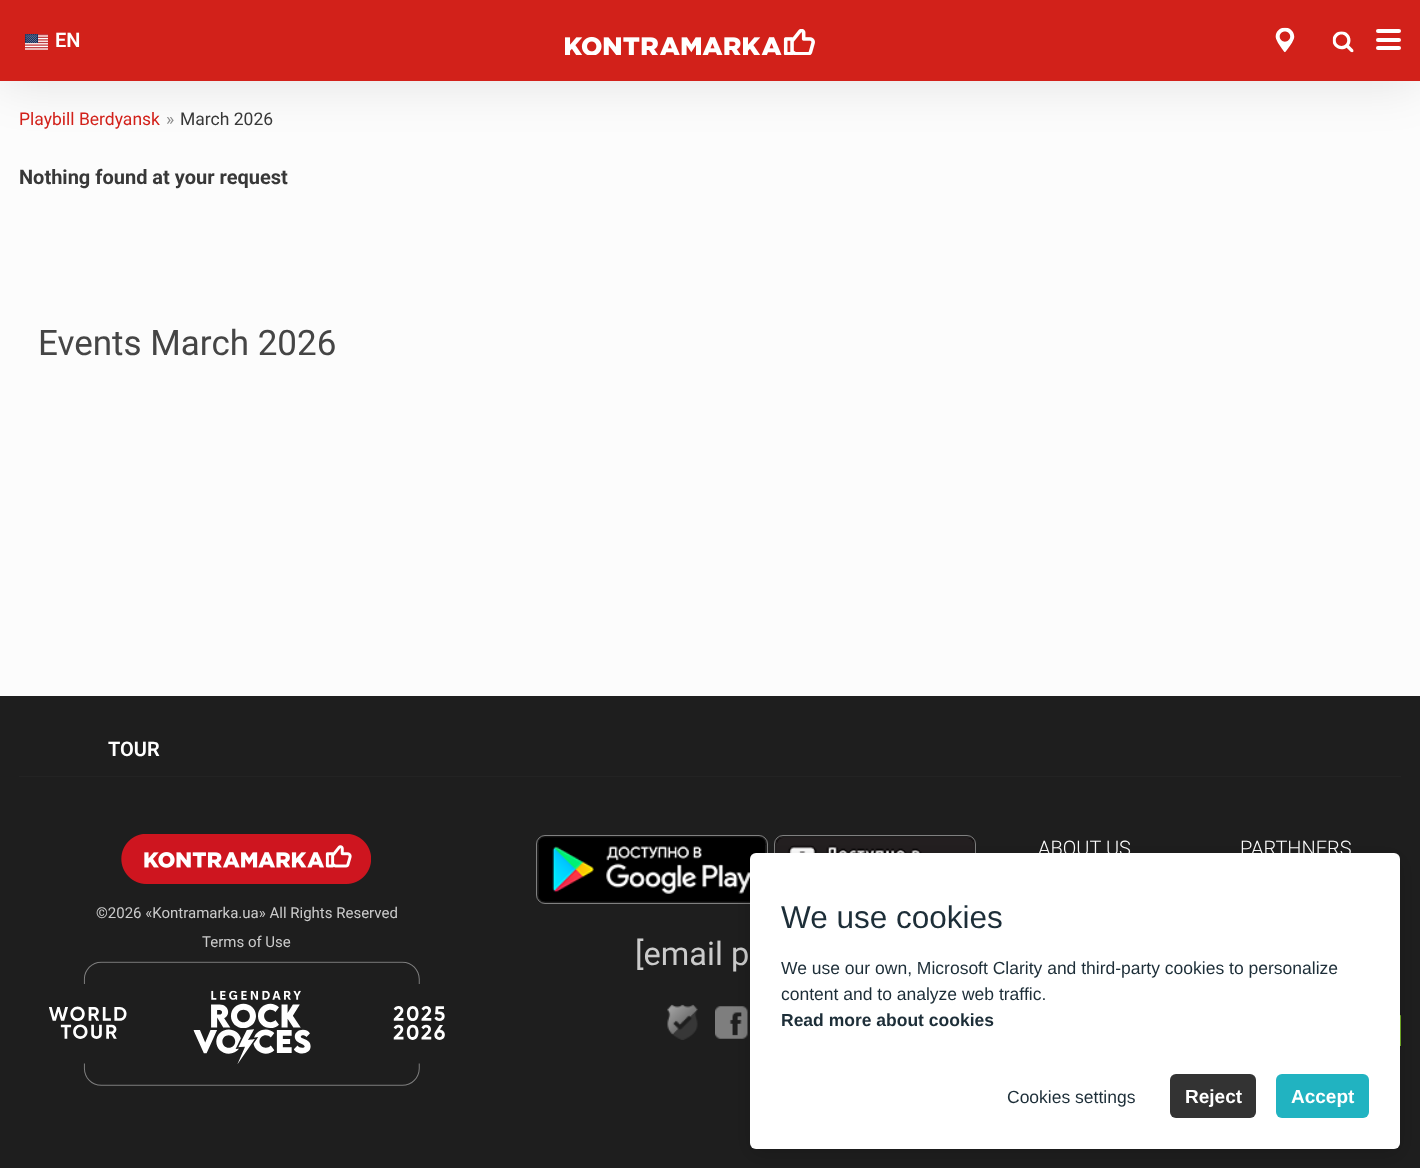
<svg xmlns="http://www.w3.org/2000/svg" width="1420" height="1168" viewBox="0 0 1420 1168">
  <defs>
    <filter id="blur1" x="-50%" y="-200%" width="200%" height="500%"><feGaussianBlur stdDeviation="25"/></filter>
    <filter id="blur2" x="-50%" y="-200%" width="200%" height="500%"><feGaussianBlur stdDeviation="10"/></filter>
  </defs>
  <rect width="100%" height="100%" fill="#fcfcfc"/>
  <rect x="0" y="3" width="1420" height="81" fill="#000000" fill-opacity="0.1" filter="url(#blur1)"/>
  <rect x="0" y="0" width="1420" height="81" fill="#d2211a"/>
  <image x="25" y="34" width="23" height="16" href="img1.png"/>
  <text x="55" y="47" font-family="Roboto" font-size="20" font-weight="600" fill="#ffffff">EN</text>
  <image x="565" y="29" width="250" height="26" href="img2.png"/>
  <image x="1275" y="27" width="20" height="26" href="img3.png"/>
  <image x="1332" y="31" width="22" height="22" href="img4.png"/>
  <rect x="1376" y="38" width="25" height="4" rx="2" fill="#ffffff"/>
  <rect x="1376" y="29" width="25" height="4" rx="2" fill="#ffffff"/>
  <rect x="1376" y="46" width="25" height="4" rx="2" fill="#ffffff"/>
  <text x="19" y="125" font-family="Roboto" font-size="17.5" fill="#d2211a">Playbill Berdyansk</text>
  <text x="166" y="125" font-family="Roboto" font-size="17.5" fill="#8c8c8c">»</text>
  <text x="180" y="125" font-family="Roboto" font-size="17.5" fill="#383838">March 2026</text>
  <text x="19" y="184" font-family="Roboto" font-size="20" font-weight="bold" fill="#383838">Nothing found at your request</text>
  <text x="38" y="355" font-family="Roboto" font-size="35" fill="#454545">Events March 2026</text>
  <rect x="0" y="696" width="1420" height="472" fill="#1e1e1e"/>
  <rect x="19" y="776" width="1382" height="1" fill="#232323"/>
  <text x="108" y="756" font-family="Roboto" font-size="20" font-weight="600" fill="#ffffff">TOUR</text>
  <text x="1038" y="855" font-family="Roboto" font-size="20" font-weight="300" fill="#ffffff">ABOUT US</text>
  <text x="1240" y="855" font-family="Roboto" font-size="20" font-weight="300" fill="#ffffff">PARTHNERS</text>
  <image x="1400" y="1015" width="1" height="31" href="img5.png"/>
  <image x="121" y="834" width="250" height="50" href="img6.png"/>
  <text x="96" y="918" font-family="Roboto" font-size="15" fill="#cbcbcb">©2026 «Kontramarka.ua» All Rights Reserved</text>
  <text x="202" y="947" font-family="Roboto" font-size="15" fill="#cbcbcb">Terms of Use</text>
  <image x="49" y="961" width="396" height="125" href="img7.png"/>
  <rect x="536.5" y="835.5" width="231" height="68" rx="8.5" fill="none" stroke="#808080"/>
  <rect x="774.5" y="835.5" width="201" height="69" rx="8.5" fill="none" stroke="#808080"/>
  <image x="538" y="836" width="228" height="66" href="img8.png"/>
  <image x="775" y="837" width="200" height="16" href="img9.png"/>
  <text x="635" y="965" font-family="Roboto" font-size="32.5" fill="#cbcbcb">[email p</text>
  <image x="667" y="1004" width="31" height="36" href="img10.png"/>
  <image x="715" y="1006" width="33" height="33" href="img11.png"/>
  <rect x="750" y="858" width="650" height="296" rx="6" fill="#000000" fill-opacity="0.16" filter="url(#blur2)"/>
  <rect x="750" y="853" width="650" height="296" rx="6" fill="#ffffff"/>
  <text x="781" y="928" font-family="Liberation Sans" font-size="31.5" fill="#1d2e38">We use cookies</text>
  <text x="781" y="974" font-family="Liberation Sans" font-size="17.5" fill="#1d2e38">We use our own, Microsoft Clarity and third-party cookies to personalize</text>
  <text x="781" y="1000" font-family="Liberation Sans" font-size="17.5" fill="#1d2e38">content and to analyze web traffic.</text>
  <text x="781" y="1026" font-family="Liberation Sans" font-size="17.5" font-weight="bold" fill="#1d2e38">Read more about cookies</text>
  <text x="1007" y="1103" font-family="Liberation Sans" font-size="17.5" fill="#1d2e38">Cookies settings</text>
  <rect x="1170" y="1074" width="86" height="44" rx="6" fill="#333333"/>
  <text x="1185" y="1103" font-family="Liberation Sans" font-size="19" font-weight="bold" fill="#ffffff">Reject</text>
  <rect x="1276" y="1074" width="93" height="44" rx="6" fill="#21b3c1"/>
  <text x="1291" y="1103" font-family="Liberation Sans" font-size="19" font-weight="bold" fill="#ffffff">Accept</text>
</svg>
